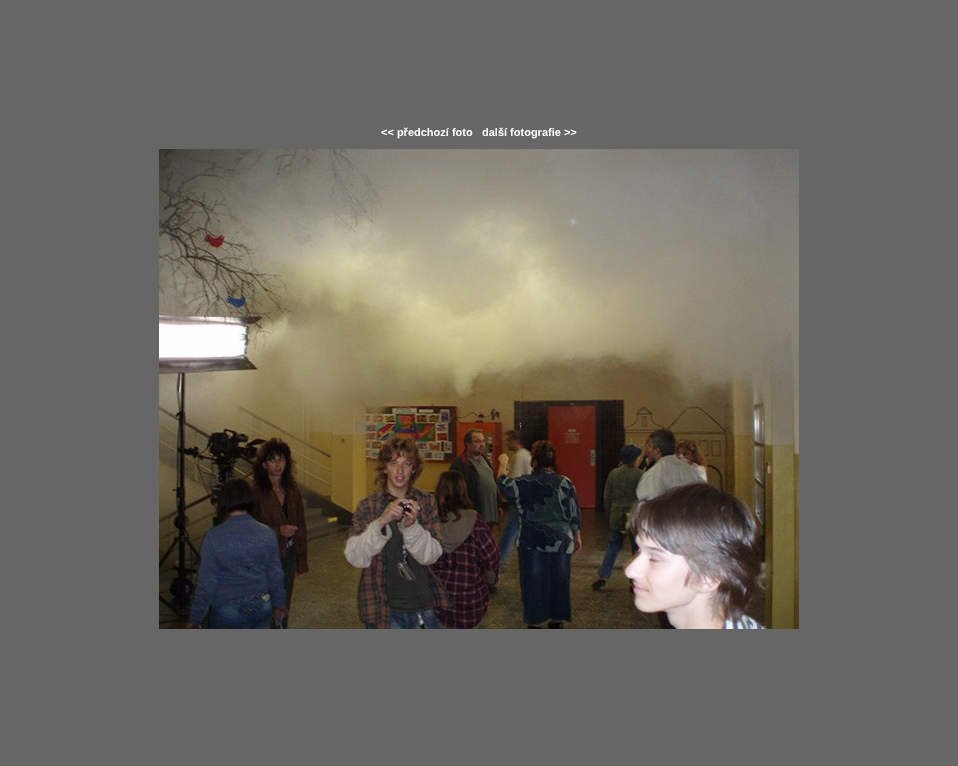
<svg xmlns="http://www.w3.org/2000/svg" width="958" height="766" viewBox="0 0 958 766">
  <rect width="100%" height="100%" fill="#666666"/>
  <text x="381" y="136" font-family="Liberation Sans" font-size="11" font-weight="bold" fill="#ffffff">&lt;&lt; předchozí foto</text>
  <text x="482" y="136" font-family="Liberation Sans" font-size="11" font-weight="bold" fill="#ffffff">další fotografie &gt;&gt;</text>
  <image x="159" y="149" width="640" height="480" href="img1.png"/>
</svg>
